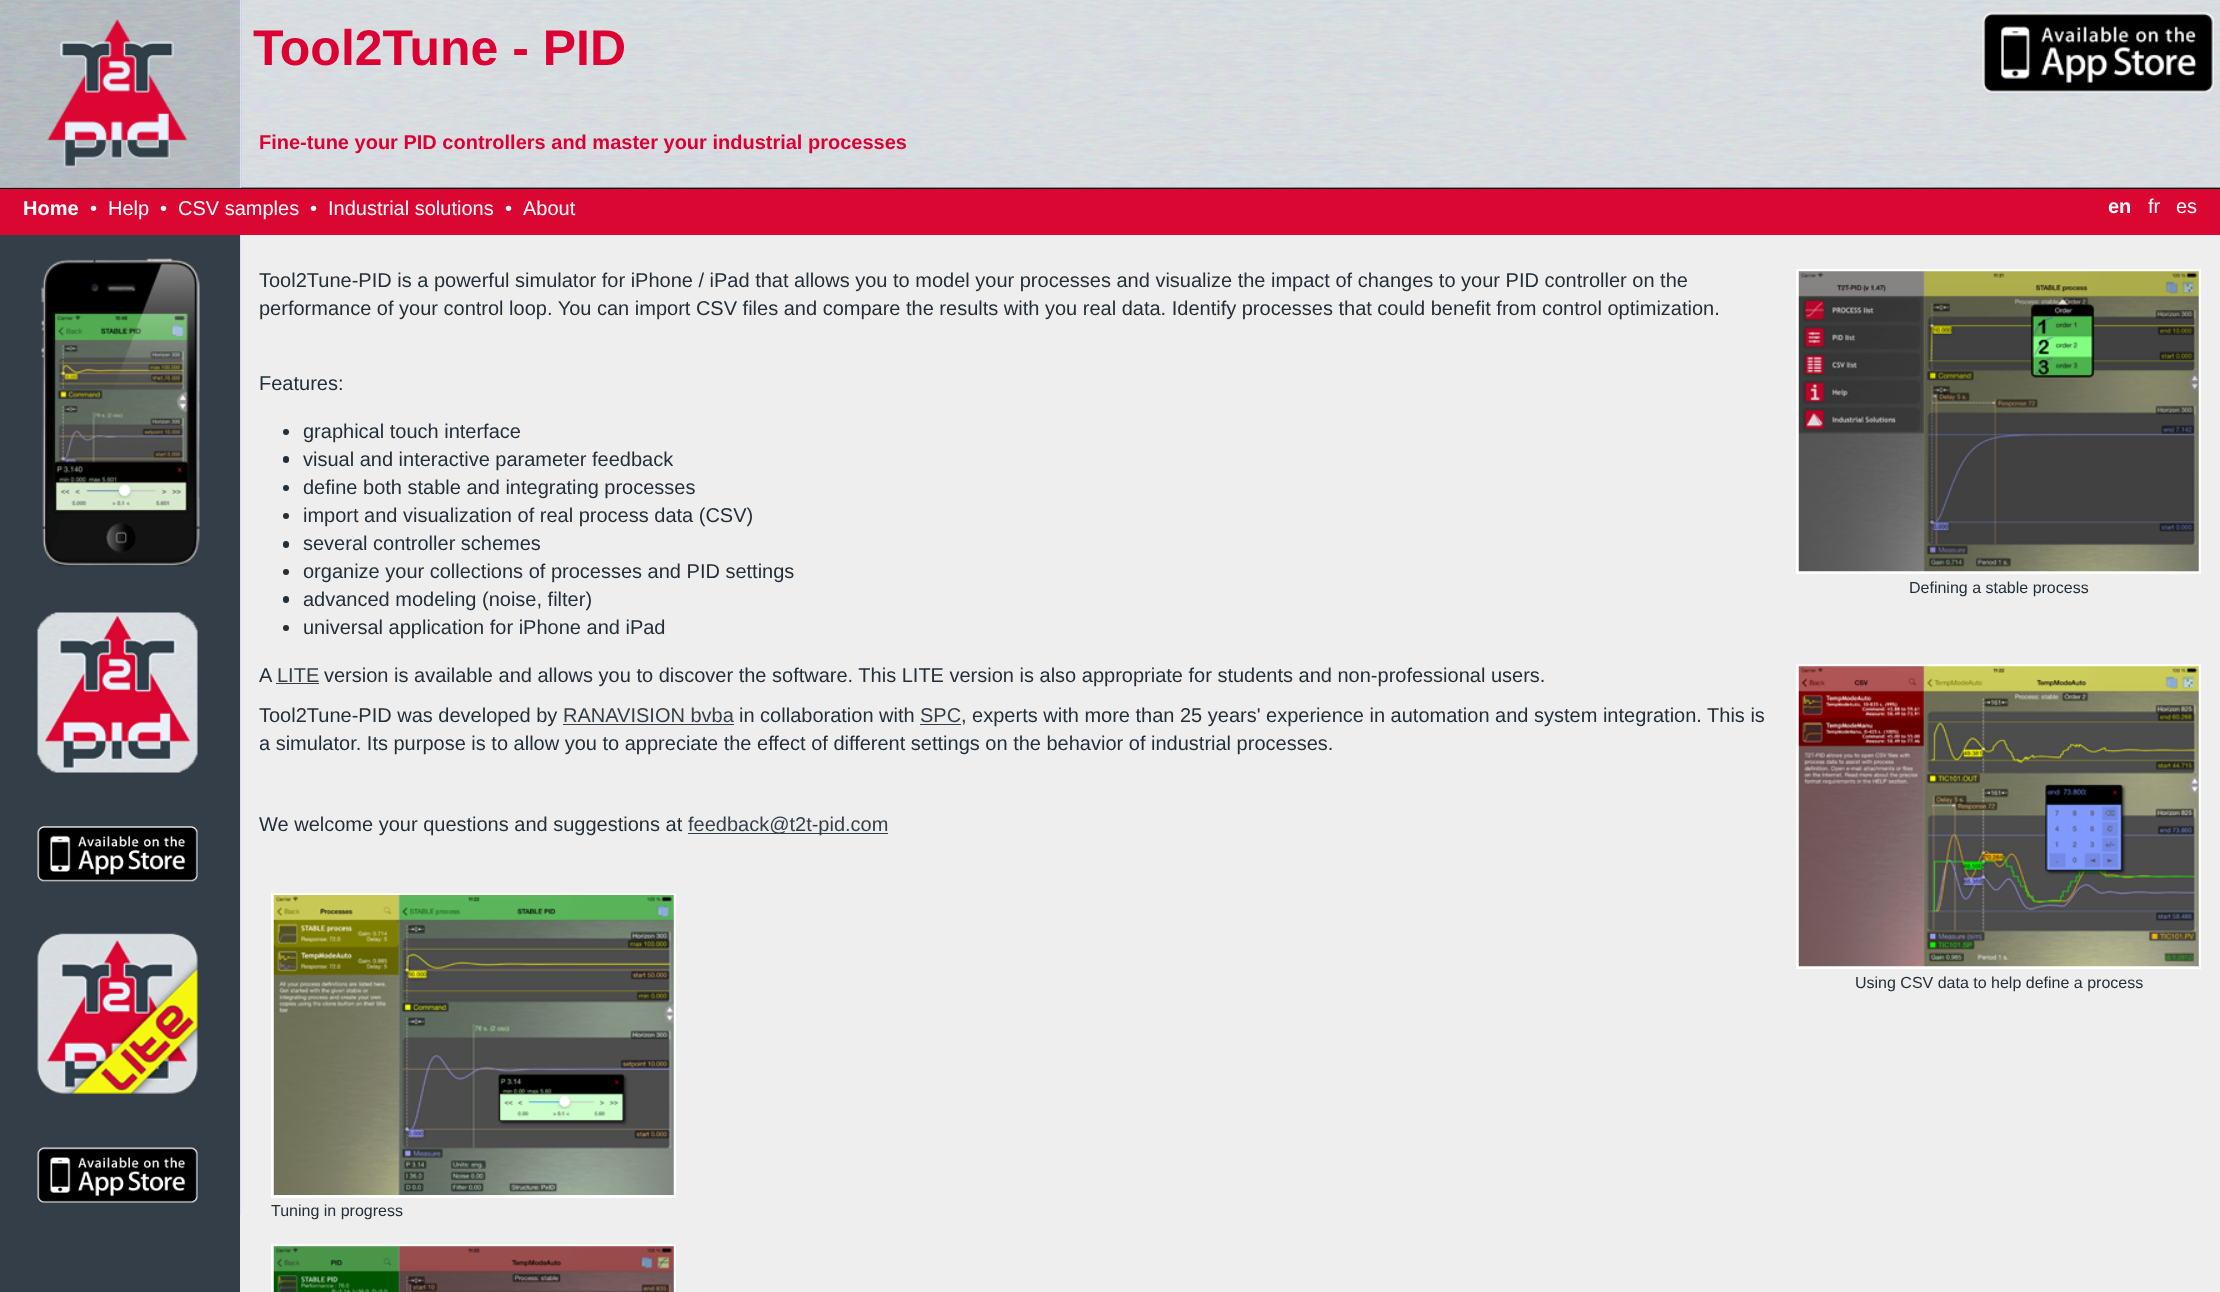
<svg xmlns="http://www.w3.org/2000/svg" width="2220" height="1292" viewBox="0 0 2220 1292">
  <rect width="100%" height="100%" fill="#333e48"/>
  <image x="0" y="0" width="2220" height="188" href="img1.png"/>
  <image x="0" y="0" width="242" height="188" href="img2.png"/>
  <rect x="240" y="0" width="1" height="188" fill="#ddddff"/>
  <image x="47" y="19" width="141" height="149" href="img3.png"/>
  <text x="253" y="65" font-family="Liberation Sans" font-size="50" font-weight="bold" fill="#dc0133">Tool2Tune - PID</text>
  <text x="259" y="149" font-family="Liberation Sans" font-size="20" font-weight="bold" fill="#dc0133">Fine-tune your PID controllers and master your industrial processes</text>
  <image x="1982" y="12" width="232" height="81" href="img4.png"/>
  <rect x="0" y="188" width="2220" height="1" fill="#000000"/>
  <rect x="0" y="189" width="2220" height="46" fill="#db0733"/>
  <text x="23" y="215" font-family="Liberation Sans" font-size="20" font-weight="bold" fill="#ffffff">Home</text>
  <text x="90" y="215" font-family="Liberation Sans" font-size="20" fill="#ffffff">•</text>
  <text x="108" y="215" font-family="Liberation Sans" font-size="20" fill="#ffffff">Help</text>
  <text x="160" y="215" font-family="Liberation Sans" font-size="20" fill="#ffffff">•</text>
  <text x="178" y="215" font-family="Liberation Sans" font-size="20" fill="#ffffff">CSV samples</text>
  <text x="310" y="215" font-family="Liberation Sans" font-size="20" fill="#ffffff">•</text>
  <text x="328" y="215" font-family="Liberation Sans" font-size="20" fill="#ffffff">Industrial solutions</text>
  <text x="505" y="215" font-family="Liberation Sans" font-size="20" fill="#ffffff">•</text>
  <text x="523" y="215" font-family="Liberation Sans" font-size="20" fill="#ffffff">About</text>
  <text x="2108" y="213" font-family="Liberation Sans" font-size="20" font-weight="bold" fill="#ffffff">en</text>
  <text x="2148" y="213" font-family="Liberation Sans" font-size="20" fill="#ffffff">fr</text>
  <text x="2176" y="213" font-family="Liberation Sans" font-size="20" fill="#ffffff">es</text>
  <rect x="240" y="235" width="1980" height="1057" fill="#eeeeee"/>
  <rect x="240" y="235" width="1" height="980" fill="#ddddff"/>
  <image x="41" y="258" width="159" height="309" href="img5.png"/>
  <image x="37" y="612" width="161" height="161" href="img6.png"/>
  <image x="37" y="826" width="161" height="56" href="img7.png"/>
  <image x="37" y="933" width="161" height="161" href="img8.png"/>
  <image x="37" y="1147" width="161" height="56" href="img9.png"/>
  <text x="259" y="287" font-family="Liberation Sans" font-size="20" fill="#232e38">Tool2Tune-PID is a powerful simulator for iPhone / iPad that allows you to model your processes and visualize the impact of changes to your PID controller on the</text>
  <text x="259" y="315" font-family="Liberation Sans" font-size="20" fill="#232e38">performance of your control loop. You can import CSV files and compare the results with you real data. Identify processes that could benefit from control optimization.</text>
  <text x="259" y="390" font-family="Liberation Sans" font-size="20" fill="#232e38">Features:</text>
  <circle cx="286" cy="432" r="3" fill="#232e38"/>
  <text x="303" y="438" font-family="Liberation Sans" font-size="20" fill="#232e38">graphical touch interface</text>
  <rect x="283" y="456" width="6" height="7" rx="3" fill="#232e38"/>
  <text x="303" y="466" font-family="Liberation Sans" font-size="20" fill="#232e38">visual and interactive parameter feedback</text>
  <circle cx="286" cy="488" r="3" fill="#232e38"/>
  <text x="303" y="494" font-family="Liberation Sans" font-size="20" fill="#232e38">define both stable and integrating processes</text>
  <circle cx="286" cy="516" r="3" fill="#232e38"/>
  <text x="303" y="522" font-family="Liberation Sans" font-size="20" fill="#232e38">import and visualization of real process data (CSV)</text>
  <rect x="283" y="541" width="6" height="7" rx="3" fill="#232e38"/>
  <text x="303" y="550" font-family="Liberation Sans" font-size="20" fill="#232e38">several controller schemes</text>
  <circle cx="286" cy="572" r="3" fill="#232e38"/>
  <text x="303" y="578" font-family="Liberation Sans" font-size="20" fill="#232e38">organize your collections of processes and PID settings</text>
  <rect x="283" y="596" width="6" height="7" rx="3" fill="#232e38"/>
  <text x="303" y="606" font-family="Liberation Sans" font-size="20" fill="#232e38">advanced modeling (noise, filter)</text>
  <circle cx="286" cy="628" r="3" fill="#232e38"/>
  <text x="303" y="634" font-family="Liberation Sans" font-size="20" fill="#232e38">universal application for iPhone and iPad</text>
  <rect x="1797.5" y="270.5" width="402" height="302" fill="none" stroke="#ffffff" stroke-width="3"/>
  <image x="1798" y="271" width="401" height="301" href="img10.png"/>
  <text x="1909" y="593" font-family="Liberation Sans" font-size="16" fill="#232e38">Defining a stable process</text>
  <text x="259" y="682" font-family="Liberation Sans" font-size="20" fill="#232e38">A</text>
  <text x="277" y="682" font-family="Liberation Sans" font-size="20" fill="#333e48">LITE</text>
  <rect x="276" y="683" width="43" height="1" fill="#333e48"/>
  <text x="324" y="682" font-family="Liberation Sans" font-size="20" fill="#232e38">version is available and allows you to discover the software. This LITE version is also appropriate for students and non-professional users.</text>
  <text x="259" y="722" font-family="Liberation Sans" font-size="20" fill="#232e38">Tool2Tune-PID was developed by</text>
  <text x="563" y="722" font-family="Liberation Sans" font-size="20" fill="#333e48">RANAVISION bvba</text>
  <rect x="563" y="724" width="171" height="1" fill="#333e48"/>
  <text x="739" y="722" font-family="Liberation Sans" font-size="20" fill="#232e38">in collaboration with</text>
  <text x="920" y="722" font-family="Liberation Sans" font-size="20" fill="#333e48">SPC</text>
  <rect x="920" y="724" width="41" height="1" fill="#333e48"/>
  <text x="961" y="722" font-family="Liberation Sans" font-size="20" fill="#232e38">, experts with more than 25 years' experience in automation and system integration. This is</text>
  <text x="259" y="750" font-family="Liberation Sans" font-size="20" fill="#232e38">a simulator. Its purpose is to allow you to appreciate the effect of different settings on the behavior of industrial processes.</text>
  <text x="259" y="831" font-family="Liberation Sans" font-size="20" fill="#232e38">We welcome your questions and suggestions at</text>
  <rect x="688" y="833" width="200" height="1" fill="#333e48"/>
  <text x="688" y="831" font-family="Liberation Sans" font-size="20" fill="#333e48">feedback@t2t-pid.com</text>
  <rect x="1797.5" y="665.5" width="402" height="302" fill="none" stroke="#ffffff" stroke-width="3"/>
  <image x="1798" y="666" width="401" height="301" href="img11.png"/>
  <text x="1855" y="988" font-family="Liberation Sans" font-size="16" fill="#232e38">Using CSV data to help define a process</text>
  <rect x="272.5" y="894.5" width="402" height="302" fill="none" stroke="#ffffff" stroke-width="3"/>
  <image x="273" y="895" width="401" height="300" href="img12.png"/>
  <text x="271" y="1216" font-family="Liberation Sans" font-size="16" fill="#232e38">Tuning in progress</text>
  <rect x="272.5" y="1245.5" width="402" height="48" fill="none" stroke="#ffffff" stroke-width="3"/>
  <image x="273" y="1246" width="401" height="46" href="img13.png"/>
</svg>
